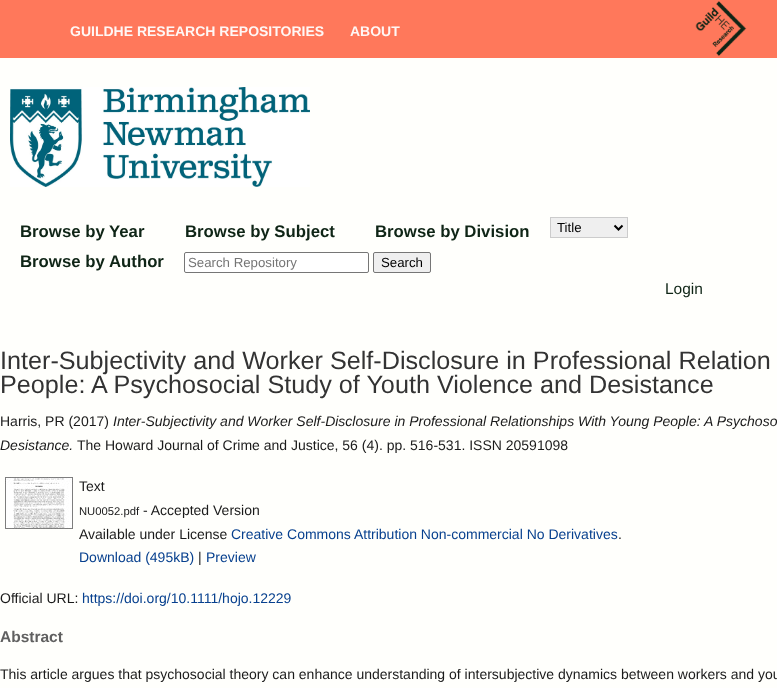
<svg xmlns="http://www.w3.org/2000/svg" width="777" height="688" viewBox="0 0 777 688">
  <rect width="100%" height="100%" fill="#fffffc"/>
  <rect x="0" y="0" width="777" height="58" fill="#ff785b"/>
  <text x="70" y="36" font-family="Liberation Sans" font-size="14" font-weight="bold" fill="#fff7f5">GUILDHE RESEARCH REPOSITORIES</text>
  <text x="350" y="36" font-family="Liberation Sans" font-size="14" font-weight="bold" fill="#fff7f5">ABOUT</text>
  <image x="695" y="1" width="52" height="55" href="img1.png"/>
  <image x="10" y="87" width="300" height="100" href="img2.png"/>
  <text x="20" y="237" font-family="Liberation Sans" font-size="16.75" font-weight="bold" fill="#0f2516">Browse by</text>
  <text x="109" y="237" font-family="Liberation Sans" font-size="16.75" font-weight="bold" fill="#0f2516">Year</text>
  <rect x="550.5" y="217.5" width="77" height="20" fill="#efefef" stroke="#cccccc"/>
  <path d="M614.5 225.5L618.5 229.5L622.5 225.5" fill="none" stroke="#000000" stroke-width="2"/>
  <text x="557" y="232" font-family="Liberation Sans" font-size="13.25" fill="#000000">Title</text>
  <rect x="184.5" y="252.5" width="184" height="20" rx="1.5" fill="#ffffff" stroke="#767676"/>
  <text x="188" y="267" font-family="Liberation Sans" font-size="13.25" fill="#757575">Search Repository</text>
  <rect x="373.5" y="252.5" width="57" height="20" rx="1.5" fill="#efefef" stroke="#767676"/>
  <text x="381" y="267" font-family="Liberation Sans" font-size="13.25" fill="#000000">Search</text>
  <text x="185" y="237" font-family="Liberation Sans" font-size="16.75" font-weight="bold" fill="#0f2516">Browse by Subject</text>
  <text x="375" y="237" font-family="Liberation Sans" font-size="16.75" font-weight="bold" fill="#0f2516">Browse by Division</text>
  <text x="20" y="267" font-family="Liberation Sans" font-size="16.75" font-weight="bold" fill="#0f2516">Browse by</text>
  <text x="109" y="267" font-family="Liberation Sans" font-size="16.75" font-weight="bold" fill="#0f2516">Author</text>
  <text x="665" y="294" font-family="Liberation Sans" font-size="15.5" fill="#0f2516">Login</text>
  <text x="0" y="369" font-family="Liberation Sans" font-size="25.2" fill="#333333">Inter-Subjectivity and Worker Self-Disclosure in Professional Relation</text>
  <text x="0" y="393" font-family="Liberation Sans" font-size="25.2" fill="#333333">People: A Psychosocial Study of Youth Violence and Desistance</text>
  <text x="0" y="426" font-family="Liberation Sans" font-size="14" fill="#1a1a1a">Harris, PR (2017)</text>
  <text x="113" y="426" font-family="Liberation Sans" font-size="14" font-style="italic" fill="#1a1a1a">Inter-Subjectivity and Worker Self-Disclosure in Professional Relationships With Young People: A Psychoso</text>
  <text x="0" y="450" font-family="Liberation Sans" font-size="14" font-style="italic" fill="#1a1a1a">Desistance.</text>
  <text x="77" y="450" font-family="Liberation Sans" font-size="14" fill="#1a1a1a">The Howard Journal of Crime and Justice, 56 (4). pp. 516-531. ISSN 20591098</text>
  <image x="5" y="477" width="68" height="52" href="img3.png"/>
  <text x="79" y="491" font-family="Liberation Sans" font-size="14" fill="#1a1a1a">Text</text>
  <text x="79" y="515" font-family="Liberation Sans" font-size="11.25" fill="#1a1a1a">NU0052.pdf</text>
  <text x="143" y="515" font-family="Liberation Sans" font-size="14" fill="#1a1a1a">- Accepted Version</text>
  <text x="79" y="539" font-family="Liberation Sans" font-size="14" fill="#1a1a1a">Available under License</text>
  <text x="231" y="539" font-family="Liberation Sans" font-size="14" fill="#07408e">Creative Commons Attribution Non-commercial No Derivatives</text>
  <text x="618" y="539" font-family="Liberation Sans" font-size="14" fill="#1a1a1a">.</text>
  <text x="79" y="562" font-family="Liberation Sans" font-size="14" fill="#07408e">Download (495kB)</text>
  <text x="198" y="562" font-family="Liberation Sans" font-size="14" fill="#1a1a1a">|</text>
  <text x="206" y="562" font-family="Liberation Sans" font-size="14" fill="#07408e">Preview</text>
  <text x="0" y="603" font-family="Liberation Sans" font-size="14" fill="#1a1a1a">Official URL:</text>
  <text x="82" y="603" font-family="Liberation Sans" font-size="14" fill="#07408e">https://doi.org/10.1111/hojo.12229</text>
  <text x="0" y="642" font-family="Liberation Sans" font-size="15.5" font-weight="bold" fill="#606060">Abstract</text>
  <text x="0" y="679" font-family="Liberation Sans" font-size="14" fill="#1a1a1a">This article argues that psychosocial theory can enhance understanding of intersubjective dynamics between workers and you</text>
</svg>
